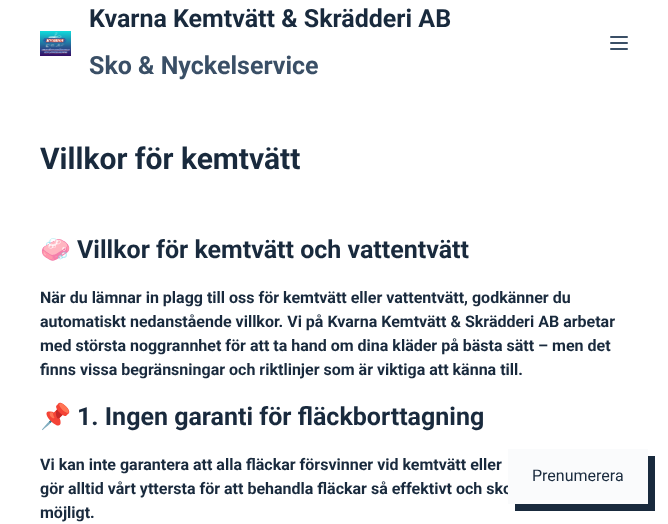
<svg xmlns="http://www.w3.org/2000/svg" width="668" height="524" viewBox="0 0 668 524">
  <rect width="100%" height="100%" fill="#ffffff"/>
  <image x="40" y="31" width="31" height="25" href="img1.png"/>
  <text x="89" y="27" font-family="Roboto" font-size="25" font-weight="bold" fill="#192a3d">Kvarna Kemtvätt &amp; Skrädderi AB</text>
  <text x="89" y="74" font-family="Roboto" font-size="25" font-weight="bold" fill="#3a4f66">Sko &amp; Nyckelservice</text>
  <rect x="610" y="36" width="18" height="2" rx="1" fill="#3a4f66"/>
  <rect x="610" y="42" width="18" height="2" rx="1" fill="#3a4f66"/>
  <rect x="610" y="48" width="18" height="2" rx="1" fill="#3a4f66"/>
  <text x="40" y="169" font-family="Roboto" font-size="30" font-weight="bold" fill="#192a3d">Villkor för kemtvätt</text>
  <text x="40" y="258" font-family="Noto Color Emoji" font-size="25" font-weight="bold" fill="#192a3d">🧼</text>
  <text x="77" y="258" font-family="Roboto" font-size="25" font-weight="bold" fill="#192a3d">Villkor för kemtvätt och vattentvätt</text>
  <text x="40" y="303" font-family="Roboto" font-size="16" font-weight="bold" fill="#192a3d">När du lämnar in plagg till oss för kemtvätt eller vattentvätt, godkänner du</text>
  <text x="40" y="327" font-family="Roboto" font-size="16" font-weight="bold" fill="#192a3d">automatiskt nedanstående villkor. Vi på Kvarna Kemtvätt &amp; Skrädderi AB arbetar</text>
  <text x="40" y="351" font-family="Roboto" font-size="16" font-weight="bold" fill="#192a3d">med största noggrannhet för att ta hand om dina kläder på bästa sätt – men det</text>
  <text x="40" y="375" font-family="Roboto" font-size="16" font-weight="bold" fill="#192a3d">finns vissa begränsningar och riktlinjer som är viktiga att känna till.</text>
  <text x="40" y="425" font-family="Noto Color Emoji" font-size="25" font-weight="bold" fill="#192a3d">📌</text>
  <text x="77" y="425" font-family="Roboto" font-size="25" font-weight="bold" fill="#192a3d">1. Ingen garanti för fläckborttagning</text>
  <text x="40" y="470" font-family="Roboto" font-size="16" font-weight="bold" fill="#192a3d">Vi kan inte garantera att alla fläckar försvinner vid kemtvätt eller</text>
  <text x="40" y="494" font-family="Roboto" font-size="16" font-weight="bold" fill="#192a3d">gör alltid vårt yttersta för att behandla fläckar så effektivt och sko</text>
  <text x="40" y="518" font-family="Roboto" font-size="16" font-weight="bold" fill="#192a3d">möjligt.</text>
  <path d="M515 504V511H655V456H648V504Z" fill="#192a3d"/>
  <rect x="508" y="449" width="140" height="55" fill="#fafbfc"/>
  <text x="532" y="481" font-family="Roboto" font-size="16" fill="#192a3d">Prenumerera</text>
</svg>
